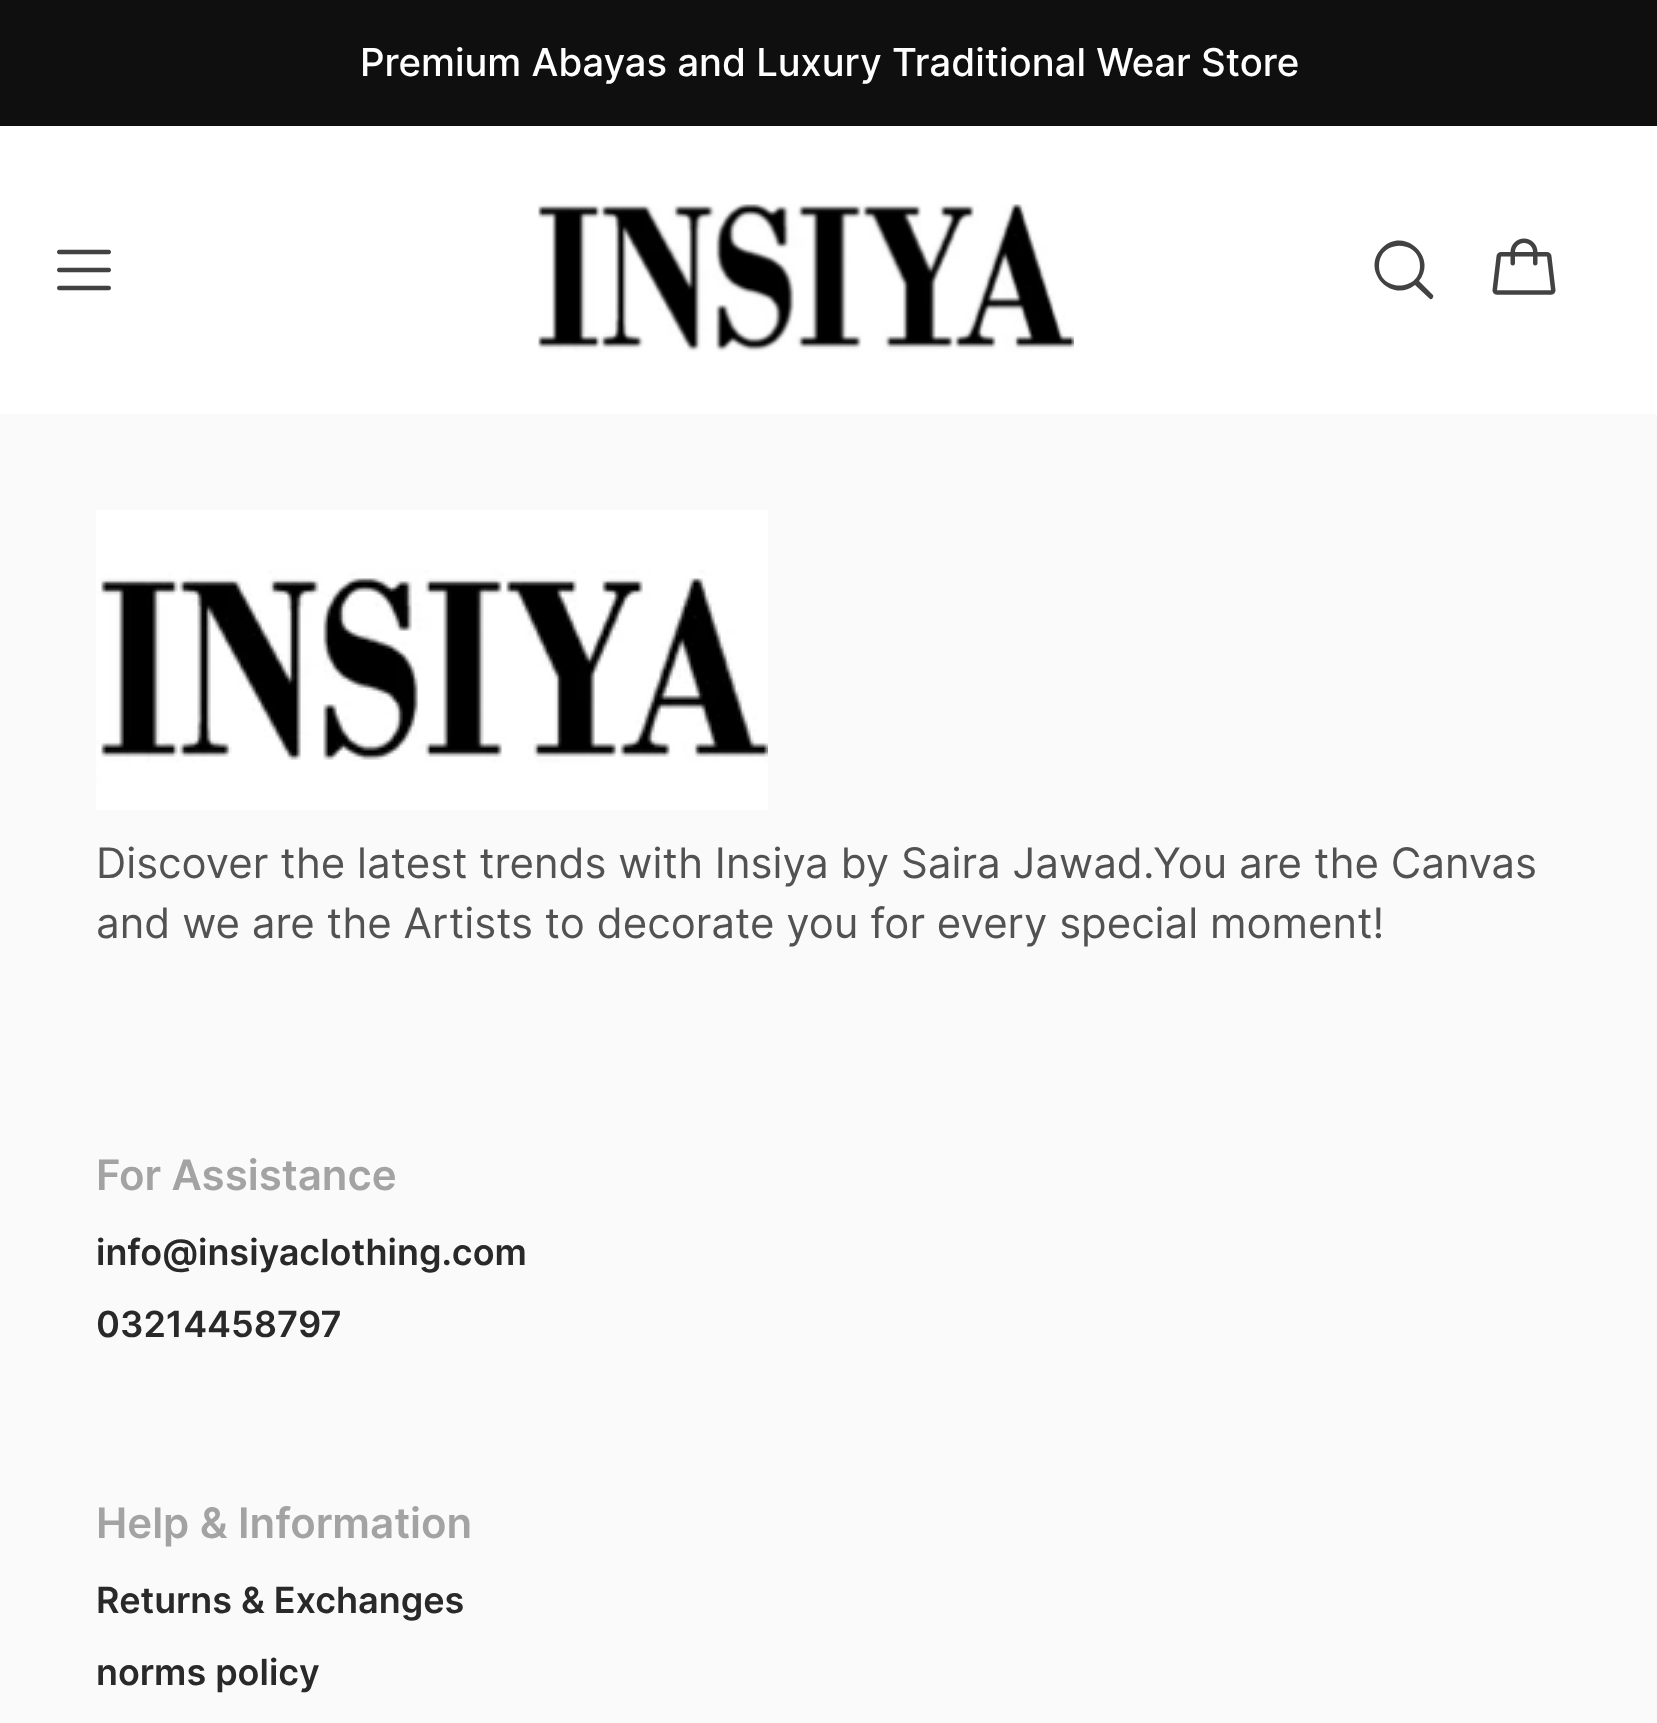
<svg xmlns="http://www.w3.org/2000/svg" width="1657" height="1723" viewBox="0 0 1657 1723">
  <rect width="100%" height="100%" fill="#ffffff"/>
  <rect x="0" y="0" width="1657" height="126" fill="#0f0f0f"/>
  <text x="360" y="76" font-family="Inter" font-size="38.4" font-weight="500" fill="#ffffff">Premium Abayas and Luxury Traditional Wear Store</text>
  <image x="57" y="249" width="54" height="42" href="img1.png"/>
  <image x="537" y="204" width="537" height="148" href="img2.png"/>
  <path d="M1433 295L1419 281C1438 257 1404 226 1382 248C1360 270 1391 304 1415 285L1430 299C1432 300 1434 297 1433 295ZM1379 266C1379 239 1420 239 1420 266C1420 292 1379 292 1379 266Z" fill="#424242"/>
  <image x="1492" y="238" width="64" height="57" href="img3.png"/>
  <rect x="0" y="414" width="1657" height="1309" fill="#fafafa"/>
  <image x="96" y="510" width="672" height="300" href="img4.png"/>
  <text x="96" y="878" font-family="Inter" font-size="42" fill="#525252">Discover the latest trends with Insiya by Saira Jawad.You are the Canvas</text>
  <text x="96" y="938" font-family="Inter" font-size="42" fill="#525252">and we are the Artists to decorate you for every special moment!</text>
  <text x="96" y="1190" font-family="Inter" font-size="42" font-weight="600" fill="#a3a3a3">For Assistance</text>
  <text x="96" y="1265" font-family="Inter" font-size="36" font-weight="600" fill="#292929">info@insiyaclothing.com</text>
  <text x="96" y="1337" font-family="Inter" font-size="36" font-weight="600" fill="#292929">03214458797</text>
  <text x="96" y="1538" font-family="Inter" font-size="42" font-weight="600" fill="#a3a3a3">Help &amp; Information</text>
  <text x="96" y="1613" font-family="Inter" font-size="36" font-weight="600" fill="#292929">Returns &amp; Exchanges</text>
  <text x="96" y="1685" font-family="Inter" font-size="36" font-weight="600" fill="#292929">norms policy</text>
</svg>
